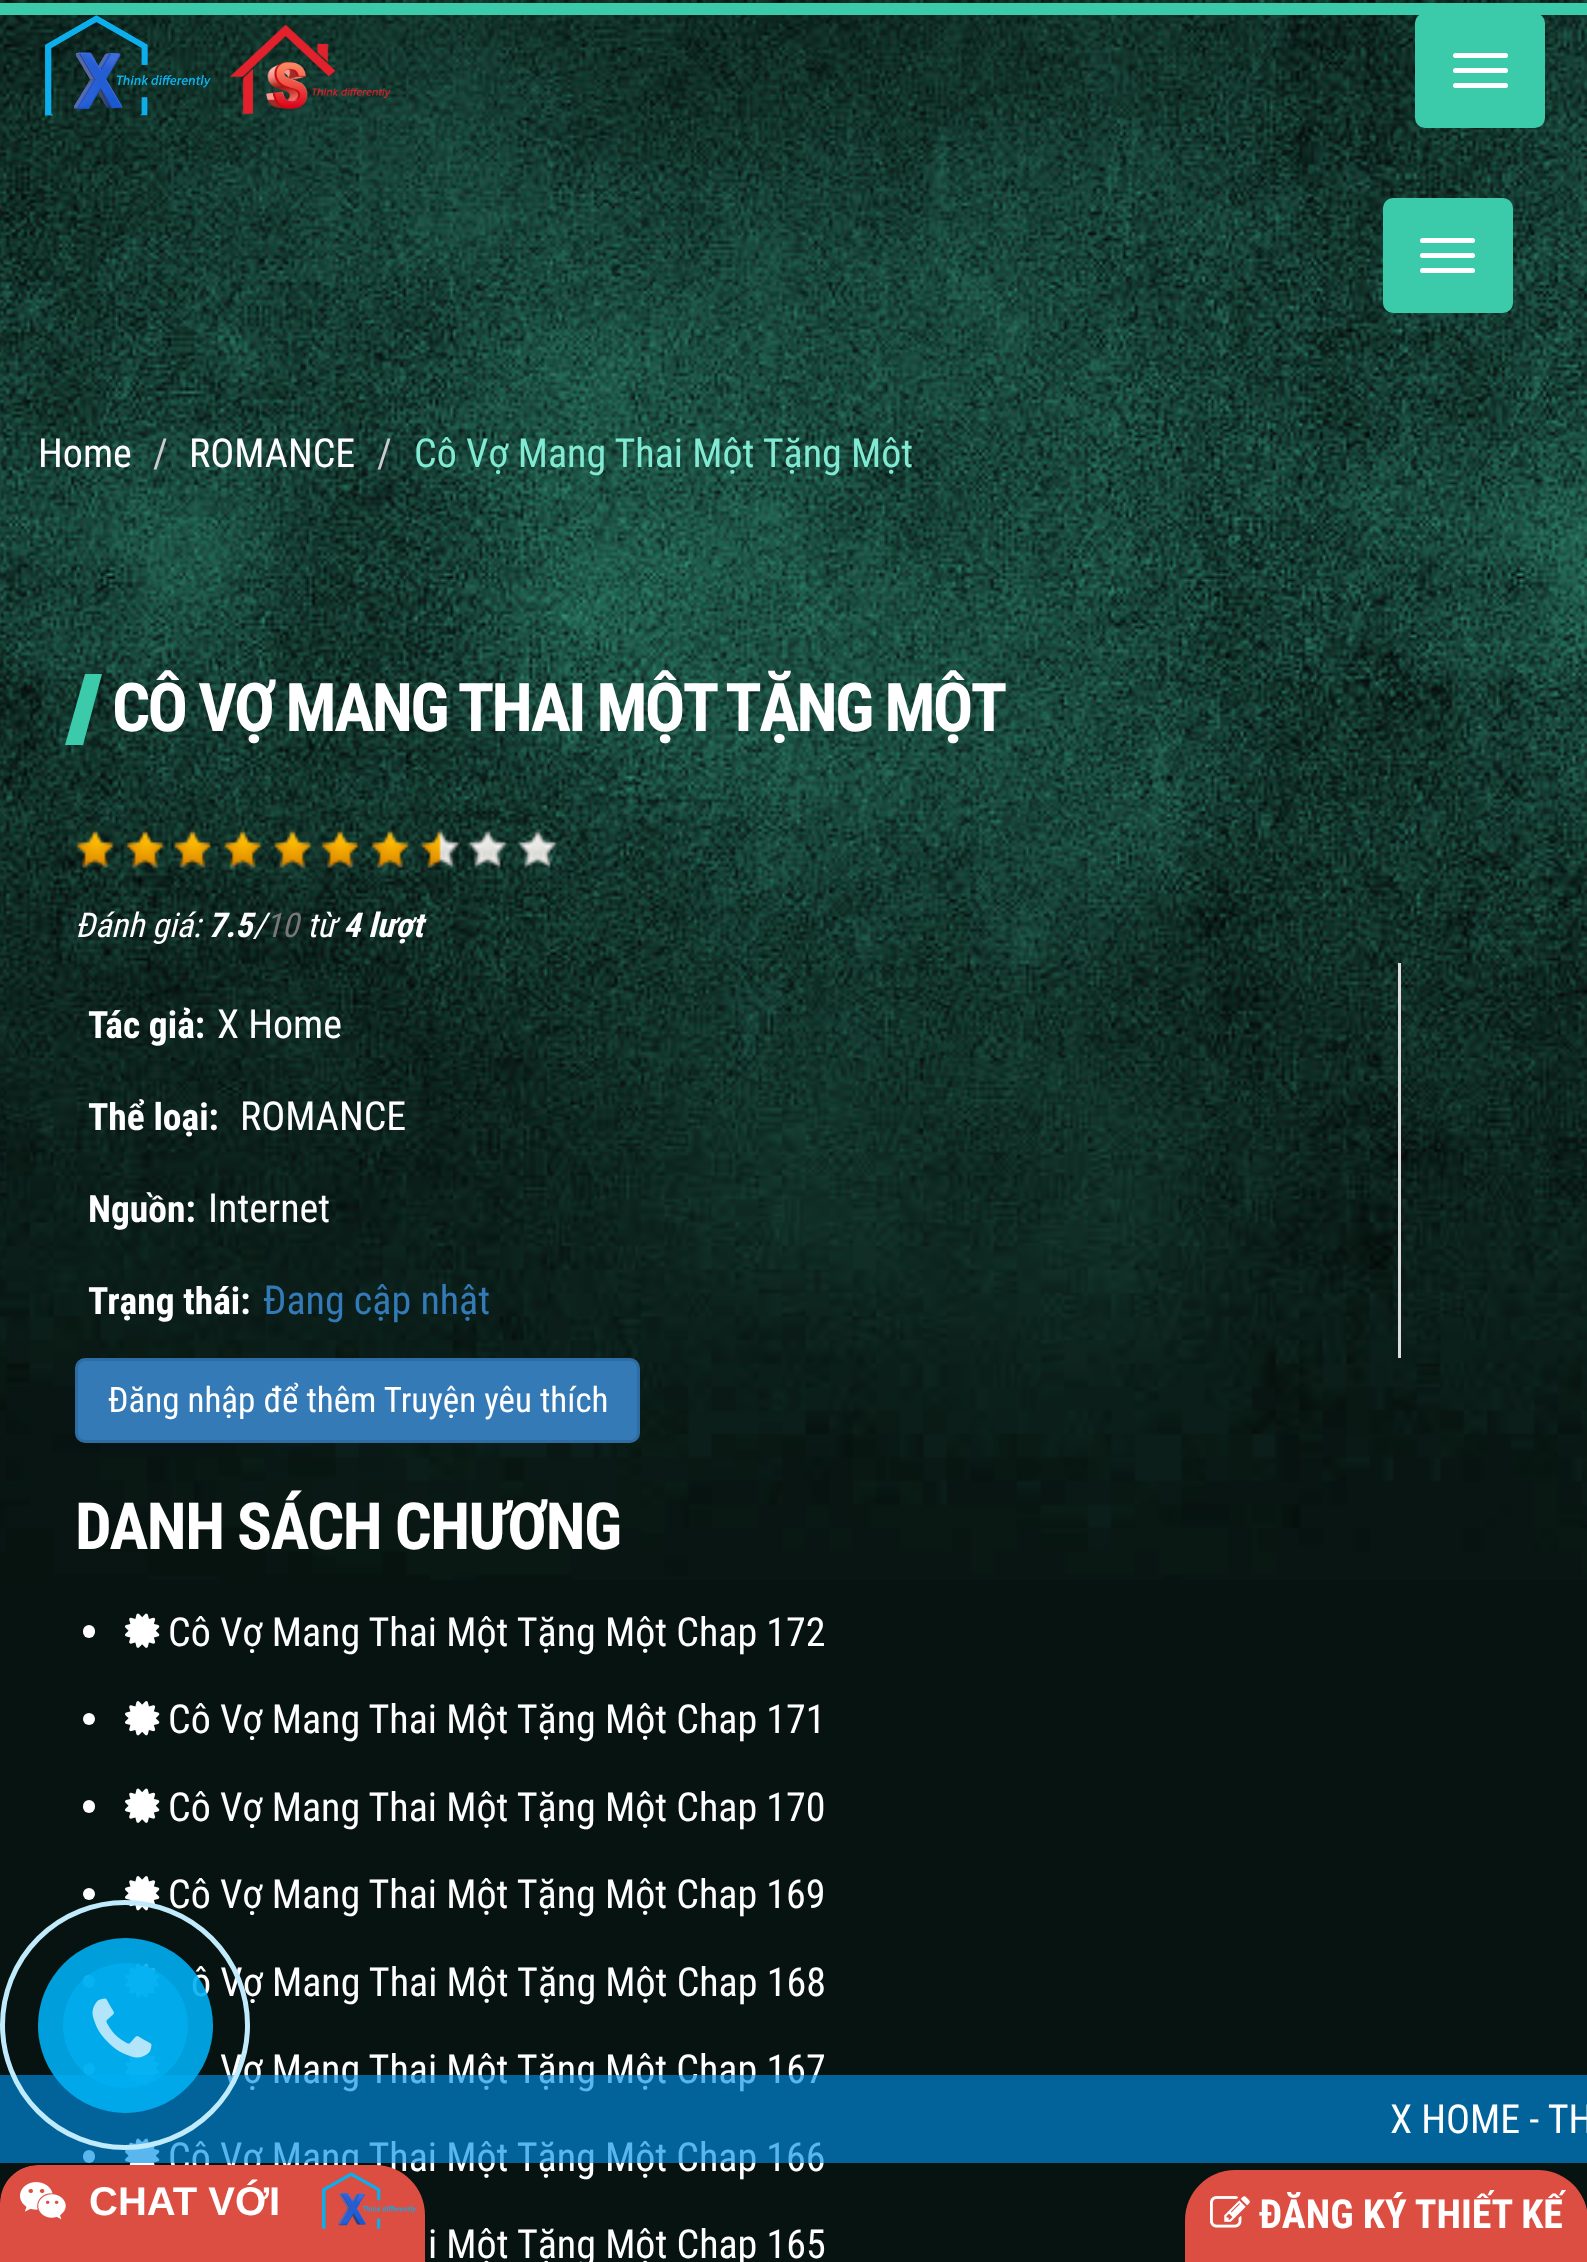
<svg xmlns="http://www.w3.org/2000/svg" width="1587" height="2262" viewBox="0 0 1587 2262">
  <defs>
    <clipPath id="clip1"><path d="M38 2165H375C402.5 2165 425 2187.5 425 2215V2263H0V2203C0 2182 17 2165 38 2165Z"/></clipPath>
  </defs>
  <rect width="100%" height="100%" fill="#ffffff"/>
  <image x="0" y="0" width="1587" height="408" href="img1.png"/>
  <rect x="0" y="3" width="1587" height="12" fill="#3bcaaa"/>
  <image x="45" y="15" width="166" height="101" href="img2.png"/>
  <image x="230" y="24" width="161" height="90" href="img3.png"/>
  <rect x="1416.5" y="14.5" width="127" height="112" rx="8.5" fill="#3bcaaa" stroke="#3bcaaa" stroke-width="3"/>
  <rect x="1453" y="53" width="55" height="5" rx="2.5" fill="#ffffff"/>
  <rect x="1453" y="68" width="55" height="5" rx="2.5" fill="#ffffff"/>
  <rect x="1453" y="83" width="55" height="5" rx="2.5" fill="#ffffff"/>
  <rect x="1384.5" y="199.5" width="127" height="112" rx="8.5" fill="#3bcaaa" stroke="#3bcaaa" stroke-width="3"/>
  <rect x="1420" y="238" width="55" height="5" rx="2.5" fill="#ffffff"/>
  <rect x="1420" y="253" width="55" height="5" rx="2.5" fill="#ffffff"/>
  <rect x="1420" y="268" width="55" height="5" rx="2.5" fill="#ffffff"/>
  <rect x="0" y="1580" width="1587" height="682" fill="#071310"/>
  <image x="0" y="408" width="1587" height="1172" href="img4.png"/>
  <text x="38" y="467" font-family="Roboto Condensed" font-size="40" fill="#ffffff">Home</text>
  <text x="153" y="467" font-family="Roboto Condensed" font-size="40" fill="#cccccc">/</text>
  <text x="189" y="467" font-family="Roboto Condensed" font-size="40" fill="#ffffff">ROMANCE</text>
  <text x="377" y="467" font-family="Roboto Condensed" font-size="40" fill="#cccccc">/</text>
  <text x="414" y="467" font-family="Roboto Condensed" font-size="40" fill="#80ead2">Cô Vợ Mang Thai Một Tặng Một</text>
  <path d="M85 674H102L83 745H65Z" fill="#3bcaaa"/>
  <text x="112" y="731" font-family="Roboto Condensed" font-size="67.25" font-weight="bold" letter-spacing="-2.7" fill="#ffffff">CÔ VỢ MANG THAI MỘT TẶNG MỘT</text>
  <image x="75" y="830" width="40" height="39" href="img5.png"/>
  <image x="125" y="830" width="40" height="39" href="img6.png"/>
  <image x="173" y="830" width="40" height="39" href="img7.png"/>
  <image x="223" y="830" width="40" height="39" href="img8.png"/>
  <image x="273" y="830" width="40" height="39" href="img9.png"/>
  <image x="320" y="830" width="40" height="39" href="img10.png"/>
  <image x="370" y="830" width="40" height="39" href="img11.png"/>
  <image x="420" y="830" width="40" height="39" href="img12.png"/>
  <image x="467" y="830" width="41" height="39" href="img13.png"/>
  <image x="517" y="830" width="41" height="39" href="img14.png"/>
  <text x="75" y="937" font-family="Roboto Condensed" font-size="34" font-style="italic" fill="#ffffff">Đánh giá:</text>
  <text x="208" y="937" font-family="Roboto Condensed" font-size="34" font-weight="bold" font-style="italic" fill="#ffffff">7.5</text>
  <text x="253" y="937" font-family="Roboto Condensed" font-size="34" font-style="italic" fill="#ffffff">/</text>
  <text x="265" y="937" font-family="Roboto Condensed" font-size="34" font-style="italic" fill="#777777">10</text>
  <text x="307" y="937" font-family="Roboto Condensed" font-size="34" font-style="italic" fill="#ffffff">từ</text>
  <text x="343" y="937" font-family="Roboto Condensed" font-size="34" font-weight="bold" font-style="italic" fill="#ffffff">4 lượt</text>
  <rect x="1398" y="963" width="3" height="395" fill="#dddddd"/>
  <text x="88" y="1038" font-family="Roboto Condensed" font-size="37.5" font-weight="bold" fill="#ffffff">Tác giả:</text>
  <text x="217" y="1038" font-family="Roboto Condensed" font-size="40" fill="#ffffff">X Home</text>
  <text x="88" y="1130" font-family="Roboto Condensed" font-size="37.5" font-weight="bold" fill="#ffffff">Thể loại:</text>
  <text x="240" y="1130" font-family="Roboto Condensed" font-size="40" fill="#ffffff">ROMANCE</text>
  <text x="88" y="1222" font-family="Roboto Condensed" font-size="37.5" font-weight="bold" fill="#ffffff">Nguồn:</text>
  <text x="208" y="1222" font-family="Roboto Condensed" font-size="40" fill="#ffffff">Internet</text>
  <text x="88" y="1314" font-family="Roboto Condensed" font-size="37.5" font-weight="bold" fill="#ffffff">Trạng thái:</text>
  <text x="263" y="1314" font-family="Roboto Condensed" font-size="40" fill="#337ab7">Đang cập nhật</text>
  <rect x="76.5" y="1359.5" width="562" height="82" rx="8.5" fill="#337ab7" stroke="#2e6da4" stroke-width="3"/>
  <text x="108" y="1412" font-family="Roboto Condensed" font-size="35" fill="#ffffff">Đăng nhập để thêm Truyện yêu thích</text>
  <text x="75" y="1549" font-family="Roboto Condensed" font-size="65" font-weight="bold" letter-spacing="-1.5" fill="#ffffff">DANH SÁCH CHƯƠNG</text>
  <rect x="83" y="1625" width="12" height="13" rx="6" fill="#ffffff"/>
  <image x="125" y="1613" width="35" height="35" href="img15.png"/>
  <text x="168" y="1646" font-family="Roboto Condensed" font-size="40" fill="#ffffff">Cô Vợ Mang Thai Một Tặng Một Chap 172</text>
  <circle cx="89" cy="1719" r="6" fill="#ffffff"/>
  <image x="125" y="1701" width="35" height="35" href="img16.png"/>
  <text x="168" y="1733" font-family="Roboto Condensed" font-size="40" fill="#ffffff">Cô Vợ Mang Thai Một Tặng Một Chap 171</text>
  <rect x="83" y="1800" width="12" height="13" rx="6" fill="#ffffff"/>
  <image x="125" y="1788" width="35" height="35" href="img15.png"/>
  <text x="168" y="1821" font-family="Roboto Condensed" font-size="40" fill="#ffffff">Cô Vợ Mang Thai Một Tặng Một Chap 170</text>
  <circle cx="89" cy="1894" r="6" fill="#ffffff"/>
  <image x="125" y="1876" width="35" height="35" href="img16.png"/>
  <text x="168" y="1908" font-family="Roboto Condensed" font-size="40" fill="#ffffff">Cô Vợ Mang Thai Một Tặng Một Chap 169</text>
  <rect x="83" y="1975" width="12" height="13" rx="6" fill="#ffffff"/>
  <image x="125" y="1963" width="35" height="35" href="img15.png"/>
  <text x="191" y="1996" font-family="Roboto Condensed" font-size="40" fill="#ffffff">ô Vợ Mang Thai Một Tặng Một Chap 168</text>
  <circle cx="89" cy="2069" r="6" fill="#ffffff"/>
  <image x="125" y="2051" width="35" height="35" href="img16.png"/>
  <text x="220" y="2083" font-family="Roboto Condensed" font-size="40" fill="#ffffff">Vợ Mang Thai Một Tặng Một Chap 167</text>
  <rect x="83" y="2150" width="12" height="13" rx="6" fill="#ffffff"/>
  <image x="125" y="2138" width="35" height="27" href="img17.png"/>
  <text x="168" y="2171" font-family="Roboto Condensed" font-size="40" fill="#ffffff">Cô Vợ Mang Thai Một Tặng Một Chap 166</text>
  <text x="428" y="2258" font-family="Roboto Condensed" font-size="40" fill="#ffffff">i Một Tặng Một Chap 165</text>
  <rect x="0" y="2075" width="1587" height="88" fill="#008fe5" fill-opacity="0.65"/>
  <circle cx="125" cy="2025" r="122.5" fill="none" stroke="#bfebfc" stroke-width="5"/>
  <circle cx="125.5" cy="2025.5" r="87.5" fill="#00aff2" fill-opacity="0.9"/>
  <circle cx="125.5" cy="2025.5" r="62.5" fill="#00aff2" fill-opacity="0.7"/>
  <image x="92" y="1998" width="60" height="60" href="img18.png"/>
  <text x="1390" y="2133" font-family="Roboto Condensed" font-size="40" fill="#ffffff">X HOME - TH</text>
  <g clip-path="url(#clip1)">
    <path d="M38 2165H425V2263H0V2203C0 2182 17 2165 38 2165Z" fill="#dc4e42"/>
  </g>
  <image x="20" y="2182" width="46" height="38" href="img19.png"/>
  <text x="89" y="2215" font-family="Liberation Sans" font-size="40" font-weight="bold" fill="#ffffff">CHAT VỚI</text>
  <image x="321" y="2172" width="96" height="57" href="img20.png"/>
  <path d="M1235 2170H1538C1565.5 2170 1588 2192.5 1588 2220V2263H1185V2220C1185 2192.5 1207.5 2170 1235 2170Z" fill="#dc4e42"/>
  <image x="1210" y="2196" width="40" height="32" href="img21.png"/>
  <text x="1259" y="2228" font-family="Roboto Condensed" font-size="40" font-weight="bold" fill="#ffffff">ĐĂNG KÝ THIẾT KẾ</text>
</svg>
